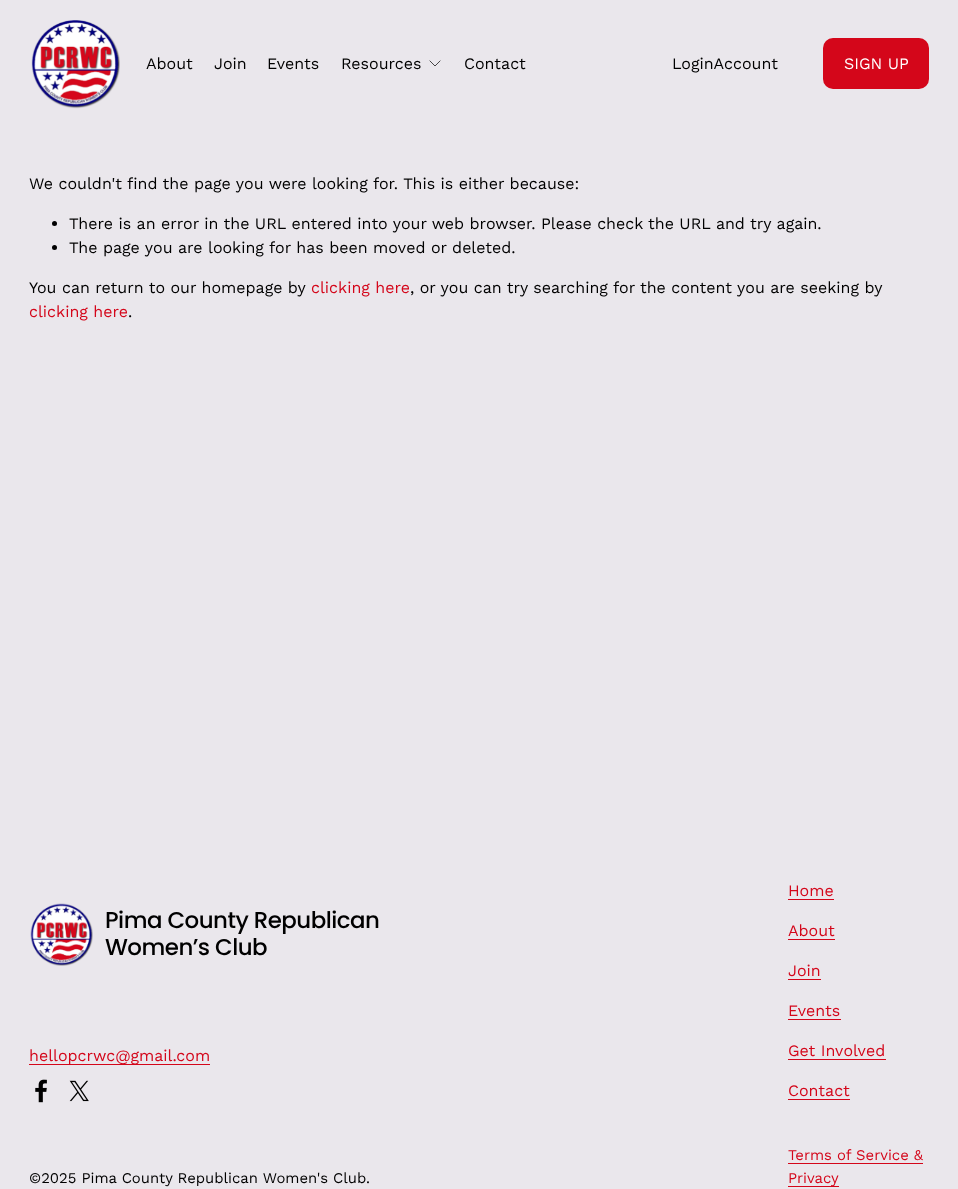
<svg xmlns="http://www.w3.org/2000/svg" width="958" height="1189" viewBox="0 0 958 1189">
  <rect width="100%" height="100%" fill="#eae7ec"/>
  <image x="31" y="20" width="89" height="89" href="img1.png"/>
  <text x="146" y="69" font-family="Work Sans" font-size="16" fill="#000000">About</text>
  <text x="214" y="69" font-family="Work Sans" font-size="16" fill="#000000">Join</text>
  <text x="267" y="69" font-family="Work Sans" font-size="16" fill="#000000">Events</text>
  <text x="341" y="69" font-family="Work Sans" font-size="16" fill="#000000">Resources</text>
  <path d="M440 61L435 66L430 61" fill="none" stroke="#000000" stroke-width="0.7" stroke-linecap="square"/>
  <text x="464" y="69" font-family="Work Sans" font-size="16" fill="#000000">Contact</text>
  <text x="672" y="69" font-family="Work Sans" font-size="16" fill="#000000">LoginAccount</text>
  <rect x="823" y="38" width="106" height="51" rx="10" fill="#d4061a"/>
  <text x="844" y="69" font-family="Work Sans" font-size="16" fill="#ffffff">SIGN UP</text>
  <text x="29" y="189" font-family="Work Sans" font-size="16" fill="#000000">We couldn't find the page you were looking for. This is either because:</text>
  <circle cx="54.5" cy="223.5" r="2.5" fill="#000000"/>
  <text x="69" y="229" font-family="Work Sans" font-size="16" fill="#000000">There is an error in the URL entered into your web browser. Please check the URL and try again.</text>
  <circle cx="54.5" cy="247.5" r="2.5" fill="#000000"/>
  <text x="69" y="253" font-family="Work Sans" font-size="16" fill="#000000">The page you are looking for has been moved or deleted.</text>
  <text x="29" y="293" font-family="Work Sans" font-size="16" fill="#000000">You can return to our homepage by</text>
  <text x="311" y="293" font-family="Work Sans" font-size="16" fill="#d4061a">clicking here</text>
  <text x="410" y="293" font-family="Work Sans" font-size="16" fill="#000000">, or you can try searching for the content you are seeking by</text>
  <text x="29" y="317" font-family="Work Sans" font-size="16" fill="#d4061a">clicking here</text>
  <text x="128" y="317" font-family="Work Sans" font-size="16" fill="#000000">.</text>
  <image x="30" y="903" width="63" height="63" href="img2.png"/>
  <text x="105" y="928" font-family="Poppins" font-size="22.9" font-weight="500" letter-spacing="-0.5" fill="#000000">Pima County Republican</text>
  <text x="105" y="955" font-family="Poppins" font-size="22.9" font-weight="500" letter-spacing="-0.5" fill="#000000">Women’s Club</text>
  <text x="788" y="896" font-family="Work Sans" font-size="16" fill="#d4061a">Home</text>
  <rect x="788" y="899" width="46" height="1" fill="#d4061a"/>
  <text x="788" y="936" font-family="Work Sans" font-size="16" fill="#d4061a">About</text>
  <rect x="788" y="939" width="47" height="1" fill="#d4061a"/>
  <text x="788" y="976" font-family="Work Sans" font-size="16" fill="#d4061a">Join</text>
  <rect x="788" y="979" width="33" height="1" fill="#d4061a"/>
  <text x="788" y="1016" font-family="Work Sans" font-size="16" fill="#d4061a">Events</text>
  <rect x="788" y="1019" width="53" height="1" fill="#d4061a"/>
  <text x="788" y="1056" font-family="Work Sans" font-size="16" fill="#d4061a">Get Involved</text>
  <rect x="788" y="1059" width="98" height="1" fill="#d4061a"/>
  <text x="788" y="1096" font-family="Work Sans" font-size="16" fill="#d4061a">Contact</text>
  <rect x="788" y="1099" width="62" height="1" fill="#d4061a"/>
  <rect x="29" y="1064" width="181" height="1" fill="#d4061a"/>
  <text x="29" y="1061" font-family="Work Sans" font-size="16" fill="#d4061a">hellopcrwc@gmail.com</text>
  <image x="35" y="1079" width="12" height="24" href="img3.png"/>
  <image x="69" y="1080" width="20" height="22" href="img4.png"/>
  <text x="29" y="1183" font-family="Work Sans" font-size="14.85" fill="#000000">©2025 Pima County Republican Women's Club.</text>
  <text x="788" y="1160" font-family="Work Sans" font-size="14.85" fill="#d4061a">Terms of Service &amp;</text>
  <rect x="788" y="1163" width="135" height="1" fill="#d4061a"/>
  <rect x="788" y="1186" width="51" height="1" fill="#d4061a"/>
  <text x="788" y="1183" font-family="Work Sans" font-size="14.85" fill="#d4061a">Privacy</text>
</svg>
